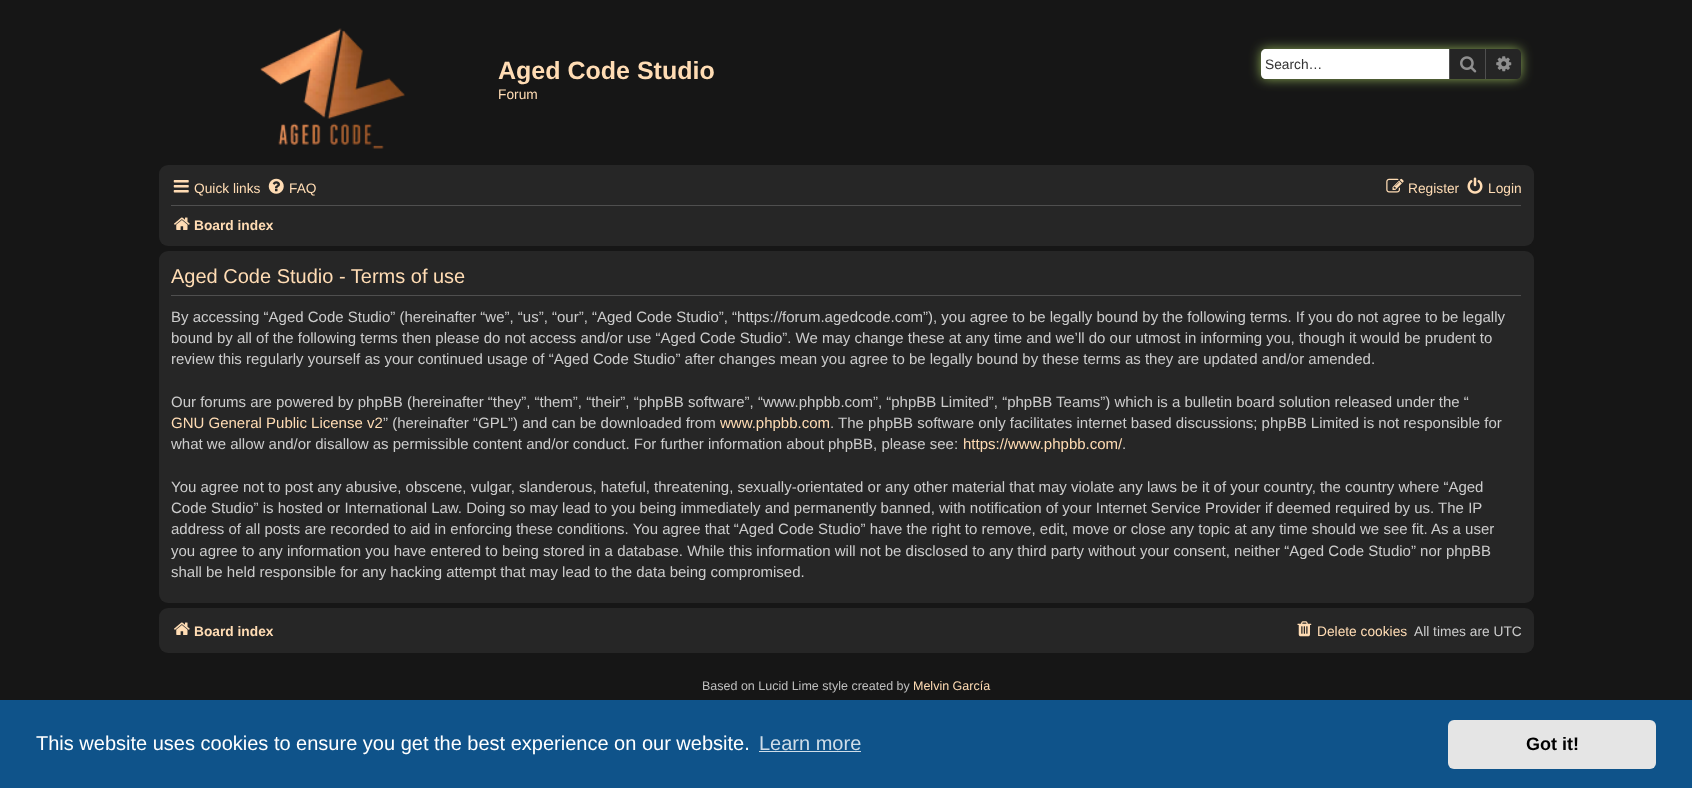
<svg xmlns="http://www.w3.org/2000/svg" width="1692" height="788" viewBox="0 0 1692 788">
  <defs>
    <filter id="blur1" x="-50%" y="-200%" width="200%" height="500%"><feGaussianBlur stdDeviation="6"/></filter>
  </defs>
  <rect width="100%" height="100%" fill="#161616"/>
  <image x="260" y="28" width="145" height="121" href="img1.png"/>
  <text x="498" y="79" font-family="Liberation Sans" font-size="25" font-weight="bold" fill="#ffdcb4">Aged Code Studio</text>
  <text x="498" y="99" font-family="Liberation Sans" font-size="13.75" fill="#ffdcb4">Forum</text>
  <rect x="1261" y="49" width="260" height="30" rx="5" fill="#8caa54" filter="url(#blur1)"/>
  <path d="M1266 49H1449V79H1266C1263 79 1261 77 1261 74V54C1261 51 1263 49 1266 49Z" fill="#ffffff"/>
  <text x="1265" y="69" font-family="Liberation Sans" font-size="13.75" fill="#333333">Search…</text>
  <rect x="1450" y="49" width="35" height="30" fill="#252525"/>
  <rect x="1485" y="49" width="1" height="30" fill="#4f4f4f"/>
  <rect x="1449" y="49" width="1" height="30" fill="#4f4f4f"/>
  <image x="1460" y="56" width="17" height="17" href="img2.png"/>
  <path d="M1486 49H1516C1519 49 1521 51 1521 54V74C1521 77 1519 79 1516 79H1486Z" fill="#252525"/>
  <image x="1496" y="56" width="16" height="16" href="img3.png"/>
  <rect x="159" y="165" width="1375" height="81" rx="9" fill="#262626"/>
  <image x="173" y="180" width="16" height="13" href="img4.png"/>
  <text x="194" y="193" font-family="Liberation Sans" font-size="13.75" fill="#ffdcb4">Quick links</text>
  <image x="268" y="178" width="16" height="16" href="img5.png"/>
  <text x="289" y="193" font-family="Liberation Sans" font-size="13.75" fill="#ffdcb4">FAQ</text>
  <image x="1386" y="178" width="18" height="15" href="img6.png"/>
  <text x="1408" y="193" font-family="Liberation Sans" font-size="13.75" fill="#ffdcb4">Register</text>
  <image x="1467" y="177" width="16" height="17" href="img7.png"/>
  <text x="1488" y="193" font-family="Liberation Sans" font-size="13.75" fill="#ffdcb4">Login</text>
  <rect x="171" y="205" width="1350" height="1" fill="#4f4f4f"/>
  <image x="174" y="217" width="16" height="13" href="img8.png"/>
  <text x="194" y="230" font-family="Liberation Sans" font-size="13.75" font-weight="bold" fill="#ffdcb4">Board index</text>
  <rect x="159" y="251" width="1375" height="352" rx="9" fill="#262626"/>
  <rect x="171" y="295" width="1350" height="1" fill="#4f4f4f"/>
  <text x="171" y="283" font-family="Liberation Sans" font-size="20" fill="#ffdcb4">Aged Code Studio - Terms of use</text>
  <text x="171" y="322" font-family="Liberation Sans" font-size="15" fill="#cccccc">By accessing “Aged Code Studio” (hereinafter “we”, “us”, “our”, “Aged Code Studio”, “https://forum.agedcode.com”), you agree to be legally bound by the following terms. If you do not agree to be legally</text>
  <text x="171" y="343" font-family="Liberation Sans" font-size="15" fill="#cccccc">bound by all of the following terms then please do not access and/or use “Aged Code Studio”. We may change these at any time and we’ll do our utmost in informing you, though it would be prudent to</text>
  <text x="171" y="364" font-family="Liberation Sans" font-size="15" fill="#cccccc">review this regularly yourself as your continued usage of “Aged Code Studio” after changes mean you agree to be legally bound by these terms as they are updated and/or amended.</text>
  <text x="171" y="407" font-family="Liberation Sans" font-size="15" fill="#cccccc">Our forums are powered by phpBB (hereinafter “they”, “them”, “their”, “phpBB software”, “www.phpbb.com”, “phpBB Limited”, “phpBB Teams”) which is a bulletin board solution released under the “</text>
  <text x="171" y="428" font-family="Liberation Sans" font-size="15" fill="#ffdcb4">GNU General Public License v2</text>
  <text x="383" y="428" font-family="Liberation Sans" font-size="15" fill="#cccccc">” (hereinafter “GPL”) and can be downloaded from</text>
  <text x="720" y="428" font-family="Liberation Sans" font-size="15" fill="#ffdcb4">www.phpbb.com</text>
  <text x="830" y="428" font-family="Liberation Sans" font-size="15" fill="#cccccc">. The phpBB software only facilitates internet based discussions; phpBB Limited is not responsible for</text>
  <text x="171" y="449" font-family="Liberation Sans" font-size="15" fill="#cccccc">what we allow and/or disallow as permissible content and/or conduct. For further information about phpBB, please see:</text>
  <text x="963" y="449" font-family="Liberation Sans" font-size="15" fill="#ffdcb4">https://www.phpbb.com/</text>
  <text x="1122" y="449" font-family="Liberation Sans" font-size="15" fill="#cccccc">.</text>
  <text x="171" y="492" font-family="Liberation Sans" font-size="15" fill="#cccccc">You agree not to post any abusive, obscene, vulgar, slanderous, hateful, threatening, sexually-orientated or any other material that may violate any laws be it of your country, the country where “Aged</text>
  <text x="171" y="513" font-family="Liberation Sans" font-size="15" fill="#cccccc">Code Studio” is hosted or International Law. Doing so may lead to you being immediately and permanently banned, with notification of your Internet Service Provider if deemed required by us. The IP</text>
  <text x="171" y="534" font-family="Liberation Sans" font-size="15" fill="#cccccc">address of all posts are recorded to aid in enforcing these conditions. You agree that “Aged Code Studio” have the right to remove, edit, move or close any topic at any time should we see fit. As a user</text>
  <text x="171" y="556" font-family="Liberation Sans" font-size="15" fill="#cccccc">you agree to any information you have entered to being stored in a database. While this information will not be disclosed to any third party without your consent, neither “Aged Code Studio” nor phpBB</text>
  <text x="171" y="577" font-family="Liberation Sans" font-size="15" fill="#cccccc">shall be held responsible for any hacking attempt that may lead to the data being compromised.</text>
  <rect x="159" y="608" width="1375" height="45" rx="9" fill="#262626"/>
  <image x="174" y="622" width="16" height="13" href="img8.png"/>
  <text x="194" y="636" font-family="Liberation Sans" font-size="13.75" font-weight="bold" fill="#ffdcb4">Board index</text>
  <image x="1297" y="621" width="15" height="16" href="img9.png"/>
  <text x="1317" y="636" font-family="Liberation Sans" font-size="13.75" fill="#ffdcb4">Delete cookies</text>
  <text x="1414" y="636" font-family="Liberation Sans" font-size="13.75" fill="#cccccc">All times are UTC</text>
  <text x="702" y="690" font-family="Liberation Sans" font-size="12.5" fill="#bfbfbf">Based on Lucid Lime style created by</text>
  <text x="913" y="690" font-family="Liberation Sans" font-size="12.5" fill="#ffdcb4">Melvin García</text>
  <rect x="0" y="700" width="1692" height="88" fill="#0f538a"/>
  <text x="36" y="750" font-family="Liberation Sans" font-size="20" fill="#ffffff">This website uses cookies to ensure you get the best experience on our website.</text>
  <text x="759" y="750" font-family="Liberation Sans" font-size="20" fill="#cfdde8">Learn more</text>
  <rect x="759" y="751" width="102" height="1" fill="#cfdde8"/>
  <rect x="1448" y="720" width="208" height="49" rx="6" fill="#e5e5e5"/>
  <text x="1526" y="750" font-family="Liberation Sans" font-size="18" font-weight="bold" fill="#000000">Got it!</text>
</svg>
